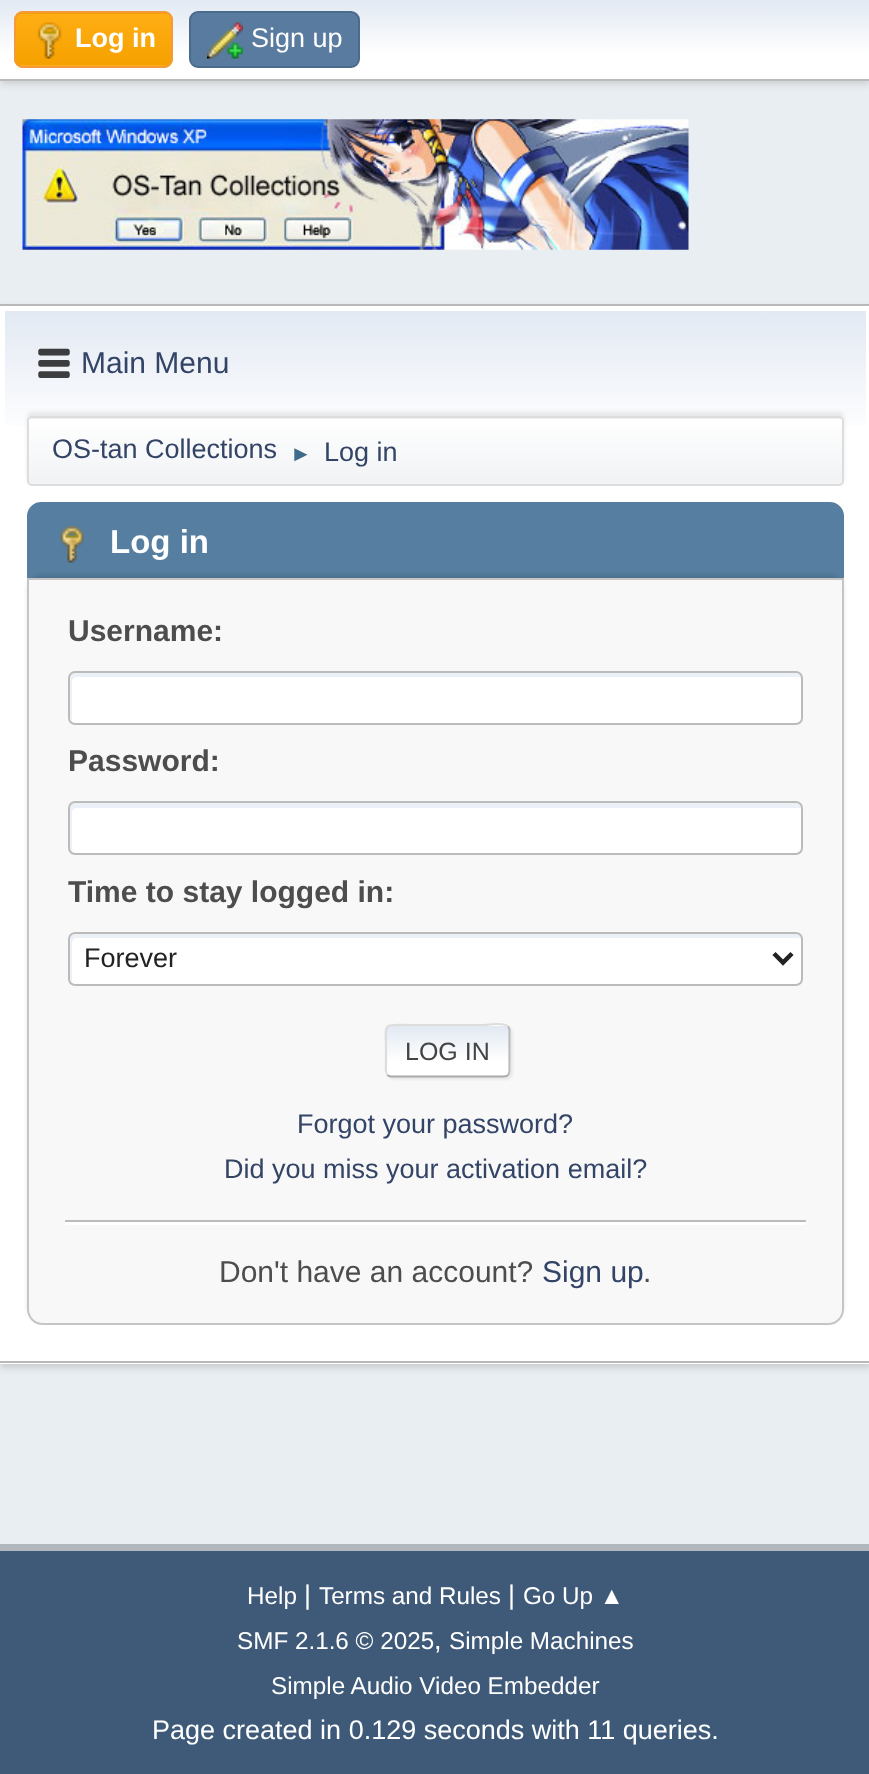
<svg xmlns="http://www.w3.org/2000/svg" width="869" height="1774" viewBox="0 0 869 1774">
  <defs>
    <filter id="blur1" x="-50%" y="-200%" width="200%" height="500%"><feGaussianBlur stdDeviation="4.5"/></filter>
    <linearGradient id="g1" gradientUnits="userSpaceOnUse" x1="435" y1="0" x2="435" y2="79"><stop offset="0" stop-color="#e2e9f3"/><stop offset="0.7" stop-color="#ffffff"/></linearGradient>
    <clipPath id="clip1"><rect x="14" y="11" width="159" height="57" rx="9"/></clipPath>
    <linearGradient id="g2" gradientUnits="userSpaceOnUse" x1="93" y1="-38" x2="93" y2="14"><stop offset="0" stop-color="#ffae14"/><stop offset="1" stop-color="#f5a100"/></linearGradient>
    <linearGradient id="g3" gradientUnits="userSpaceOnUse" x1="93" y1="13" x2="93" y2="65"><stop offset="0" stop-color="#ffae14"/><stop offset="1" stop-color="#f5a100"/></linearGradient>
    <linearGradient id="g4" gradientUnits="userSpaceOnUse" x1="93" y1="65" x2="93" y2="117"><stop offset="0" stop-color="#ffae14"/><stop offset="1" stop-color="#f5a100"/></linearGradient>
    <filter id="blur2" x="-50%" y="-200%" width="200%" height="500%"><feGaussianBlur stdDeviation="3.5"/></filter>
    <linearGradient id="g5" gradientUnits="userSpaceOnUse" x1="435" y1="310" x2="435" y2="491"><stop offset="0" stop-color="#e2e9f3"/><stop offset="0.7" stop-color="#ffffff"/></linearGradient>
    <filter id="blur3" x="-50%" y="-200%" width="200%" height="500%"><feGaussianBlur stdDeviation="2"/></filter>
    <clipPath id="clip2"><rect x="27" y="416" width="817" height="70" rx="5"/></clipPath>
    <linearGradient id="g6" gradientUnits="userSpaceOnUse" x1="435" y1="353" x2="435" y2="419"><stop offset="0" stop-color="#ffffff"/><stop offset="0.95" stop-color="#f1f3f5"/></linearGradient>
    <linearGradient id="g7" gradientUnits="userSpaceOnUse" x1="435" y1="418" x2="435" y2="484"><stop offset="0" stop-color="#ffffff"/><stop offset="0.95" stop-color="#f1f3f5"/></linearGradient>
    <filter id="blur4" x="-50%" y="-200%" width="200%" height="500%"><feGaussianBlur stdDeviation="1"/></filter>
    <clipPath id="clip3"><rect x="385" y="1024" width="126" height="54" rx="7"/></clipPath>
    <linearGradient id="g8" gradientUnits="userSpaceOnUse" x1="448" y1="977" x2="448" y2="1026"><stop offset="0" stop-color="#e2e9f3"/><stop offset="0.7" stop-color="#ffffff"/></linearGradient>
    <linearGradient id="g9" gradientUnits="userSpaceOnUse" x1="448" y1="1026" x2="448" y2="1076"><stop offset="0" stop-color="#e2e9f3"/><stop offset="0.7" stop-color="#ffffff"/></linearGradient>
    <linearGradient id="g10" gradientUnits="userSpaceOnUse" x1="448" y1="1076" x2="448" y2="1125"><stop offset="0" stop-color="#e2e9f3"/><stop offset="0.7" stop-color="#ffffff"/></linearGradient>
  </defs>
  <rect width="100%" height="100%" fill="#e9eef2"/>
  <rect x="0" y="2" width="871" height="81" fill="#000000" fill-opacity="0.16" filter="url(#blur1)"/>
  <rect x="0" y="0" width="869" height="79" fill="url(#g1)"/>
  <rect x="0" y="79" width="869" height="2" fill="#bbbbbb"/>
  <g clip-path="url(#clip1)">
    <rect x="14" y="11" width="159" height="3" fill="url(#g2)"/>
    <rect x="14" y="14" width="159" height="51" fill="url(#g3)"/>
    <rect x="14" y="65" width="159" height="3" fill="url(#g4)"/>
  </g>
  <rect x="15" y="12" width="157" height="55" rx="8" fill="none" stroke="#f49a3a" stroke-width="2"/>
  <image x="37" y="22" width="25" height="37" href="img1.png"/>
  <text x="75" y="47" font-family="Liberation Sans" font-size="27" font-weight="bold" fill="#ffffff">Log in</text>
  <rect x="190" y="12" width="169" height="55" rx="8" fill="#597b9f" stroke="#4a6b8c" stroke-width="2"/>
  <image x="207" y="22" width="36" height="37" href="img2.png"/>
  <text x="251" y="47" font-family="Liberation Sans" font-size="27" fill="#ffffff">Sign up</text>
  <image x="22" y="119" width="667" height="131" href="img3.png"/>
  <rect x="0" y="308" width="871" height="1060" fill="#000000" fill-opacity="0.14" filter="url(#blur2)"/>
  <rect x="0" y="306" width="869" height="1058" fill="#ffffff"/>
  <rect x="0" y="304" width="869" height="2" fill="#b8b8b8"/>
  <rect x="0" y="1361" width="869" height="2" fill="#b8b8b8"/>
  <rect x="5" y="311" width="861" height="115" fill="url(#g5)"/>
  <image x="38" y="348" width="32" height="30" href="img4.png"/>
  <text x="81" y="373" font-family="Liberation Sans" font-size="30" fill="#334466">Main Menu</text>
  <rect x="27" y="412" width="817" height="70" rx="5" fill="#000000" fill-opacity="0.08" filter="url(#blur3)"/>
  <g clip-path="url(#clip2)">
    <rect x="27" y="416" width="817" height="3" fill="url(#g6)"/>
    <rect x="27" y="419" width="817" height="65" fill="url(#g7)"/>
  </g>
  <rect x="28" y="417" width="815" height="68" rx="4" fill="none" stroke="#dddddd" stroke-width="2"/>
  <text x="52" y="458" font-family="Liberation Sans" font-size="27" fill="#334466">OS-tan Collections</text>
  <text x="290" y="461" font-family="Liberation Sans" font-size="22" fill="#3f6b8c">►</text>
  <text x="324" y="461" font-family="Liberation Sans" font-size="27" fill="#334466">Log in</text>
  <path d="M41 502H830C837.5 502 844 508.5 844 516V581H27V516C27 508.5 33.5 502 41 502Z" fill="#557ea0"/>
  <image x="60" y="526" width="24" height="37" href="img5.png"/>
  <text x="110" y="553" font-family="Liberation Sans" font-size="33" font-weight="bold" fill="#ffffff">Log in</text>
  <rect x="27" y="574" width="817" height="747" rx="16" fill="#000000" fill-opacity="0.1" filter="url(#blur3)"/>
  <path d="M28 579H843V1309C843 1317.5 836.5 1324 828 1324H43C34.5 1324 28 1317.5 28 1309Z" fill="#f8f8f8" stroke="#c5c5c5" stroke-width="2"/>
  <text x="68" y="641" font-family="Liberation Sans" font-size="30" font-weight="bold" fill="#4d4d4d">Username:</text>
  <rect x="68" y="671" width="735" height="54" rx="7" fill="#ffffff"/>
  <path d="M76 677H799L801 678C801 675 799 673 796 673H75C72 673 70 675 70 678V717C70 719 71 720 72 721V682C72 679 74 677 76 677Z" fill="#ecf1f8"/>
  <rect x="69" y="672" width="733" height="52" rx="6" fill="none" stroke="#bbbbbb" stroke-width="2"/>
  <text x="68" y="771" font-family="Liberation Sans" font-size="30" font-weight="bold" fill="#4d4d4d">Password:</text>
  <rect x="68" y="801" width="735" height="54" rx="7" fill="#ffffff"/>
  <path d="M76 808H799L801 809V808C801 805 799 803 796 803H75C72 803 70 805 70 808V848C70 850 71 851 72 852V812C72 810 74 808 76 808Z" fill="#ecf1f8"/>
  <rect x="69" y="802" width="733" height="52" rx="6" fill="none" stroke="#bbbbbb" stroke-width="2"/>
  <text x="68" y="902" font-family="Liberation Sans" font-size="30" font-weight="bold" fill="#4d4d4d">Time to stay logged in:</text>
  <rect x="68" y="932" width="735" height="54" rx="7" fill="#ffffff"/>
  <path d="M76 938H799L801 939C801 936 799 934 796 934H75C72 934 70 936 70 939V978C70 980 71 981 72 982V943C72 940 74 938 76 938Z" fill="#ecf1f8"/>
  <rect x="69" y="933" width="733" height="52" rx="6" fill="none" stroke="#bbbbbb" stroke-width="2"/>
  <path d="M774 953.5L783 962.5L792 953.5" fill="none" stroke="#222222" stroke-width="4.5"/>
  <text x="84" y="967" font-family="Liberation Sans" font-size="27" fill="#222222">Forever</text>
  <rect x="387" y="1026" width="126" height="54" rx="7" fill="#dddddd" fill-opacity="0.57" filter="url(#blur4)"/>
  <g clip-path="url(#clip3)">
    <rect x="385" y="1024" width="126" height="2" fill="url(#g8)"/>
    <rect x="385" y="1026" width="126" height="50" fill="url(#g9)"/>
    <rect x="385" y="1076" width="126" height="2" fill="url(#g10)"/>
  </g>
  <path d="M508 1026.5C509 1027.5 509.5 1029 509.5 1030.5V1071C509.5 1072.5 509 1074 508 1075" fill="none" stroke="#bbbbbb" stroke-width="2.2"/>
  <path d="M508 1075C507 1076 505.5 1076.5 504 1076.5H391.5C390 1076.5 388.5 1076 387.5 1075" fill="none" stroke="#aaaaaa" stroke-width="2.2"/>
  <path d="M387.5 1075C385 1072.5 386 1067.5 386 1064V1051C386 1021.5 381 1025 410 1025H485C485.5 1025 503.5 1022 508 1026.5" fill="none" stroke="#dddddd" stroke-width="2.2"/>
  <text x="405" y="1060" font-family="Liberation Sans" font-size="25" fill="#444444">LOG IN</text>
  <text x="297" y="1133" font-family="Liberation Sans" font-size="27" fill="#334466">Forgot your password?</text>
  <text x="224" y="1178" font-family="Liberation Sans" font-size="27" fill="#334466">Did you miss your activation email?</text>
  <rect x="65" y="1222" width="741" height="3" fill="#ffffff"/>
  <rect x="65" y="1220" width="741" height="2" fill="#bbbbbb"/>
  <text x="219" y="1282" font-family="Liberation Sans" font-size="30" fill="#4d4d4d">Don't have an account?</text>
  <text x="542" y="1282" font-family="Liberation Sans" font-size="30" fill="#334466">Sign up</text>
  <text x="643" y="1282" font-family="Liberation Sans" font-size="30" fill="#4d4d4d">.</text>
  <rect x="0" y="1551" width="869" height="223" fill="#3e5a78"/>
  <rect x="0" y="1544" width="869" height="7" fill="#b2b6bd"/>
  <text x="247" y="1604" font-family="Liberation Sans" font-size="24.25" fill="#ffffff">Help</text>
  <text x="304" y="1604" font-family="Liberation Sans" font-size="27" fill="#ffffff">|</text>
  <text x="319" y="1604" font-family="Liberation Sans" font-size="24.25" fill="#ffffff">Terms and Rules</text>
  <text x="508" y="1604" font-family="Liberation Sans" font-size="27" fill="#ffffff">|</text>
  <text x="523" y="1604" font-family="Liberation Sans" font-size="24.25" fill="#ffffff">Go Up ▲</text>
  <text x="237" y="1649" font-family="Liberation Sans" font-size="24.25" fill="#ffffff">SMF 2.1.6 © 2025</text>
  <text x="434" y="1649" font-family="Liberation Sans" font-size="27" fill="#ffffff">,</text>
  <text x="449" y="1649" font-family="Liberation Sans" font-size="24.25" fill="#ffffff">Simple Machines</text>
  <text x="271" y="1694" font-family="Liberation Sans" font-size="24.25" fill="#ffffff">Simple Audio Video Embedder</text>
  <text x="152" y="1739" font-family="Liberation Sans" font-size="27" fill="#ffffff">Page created in 0.129 seconds with 11 queries.</text>
</svg>
